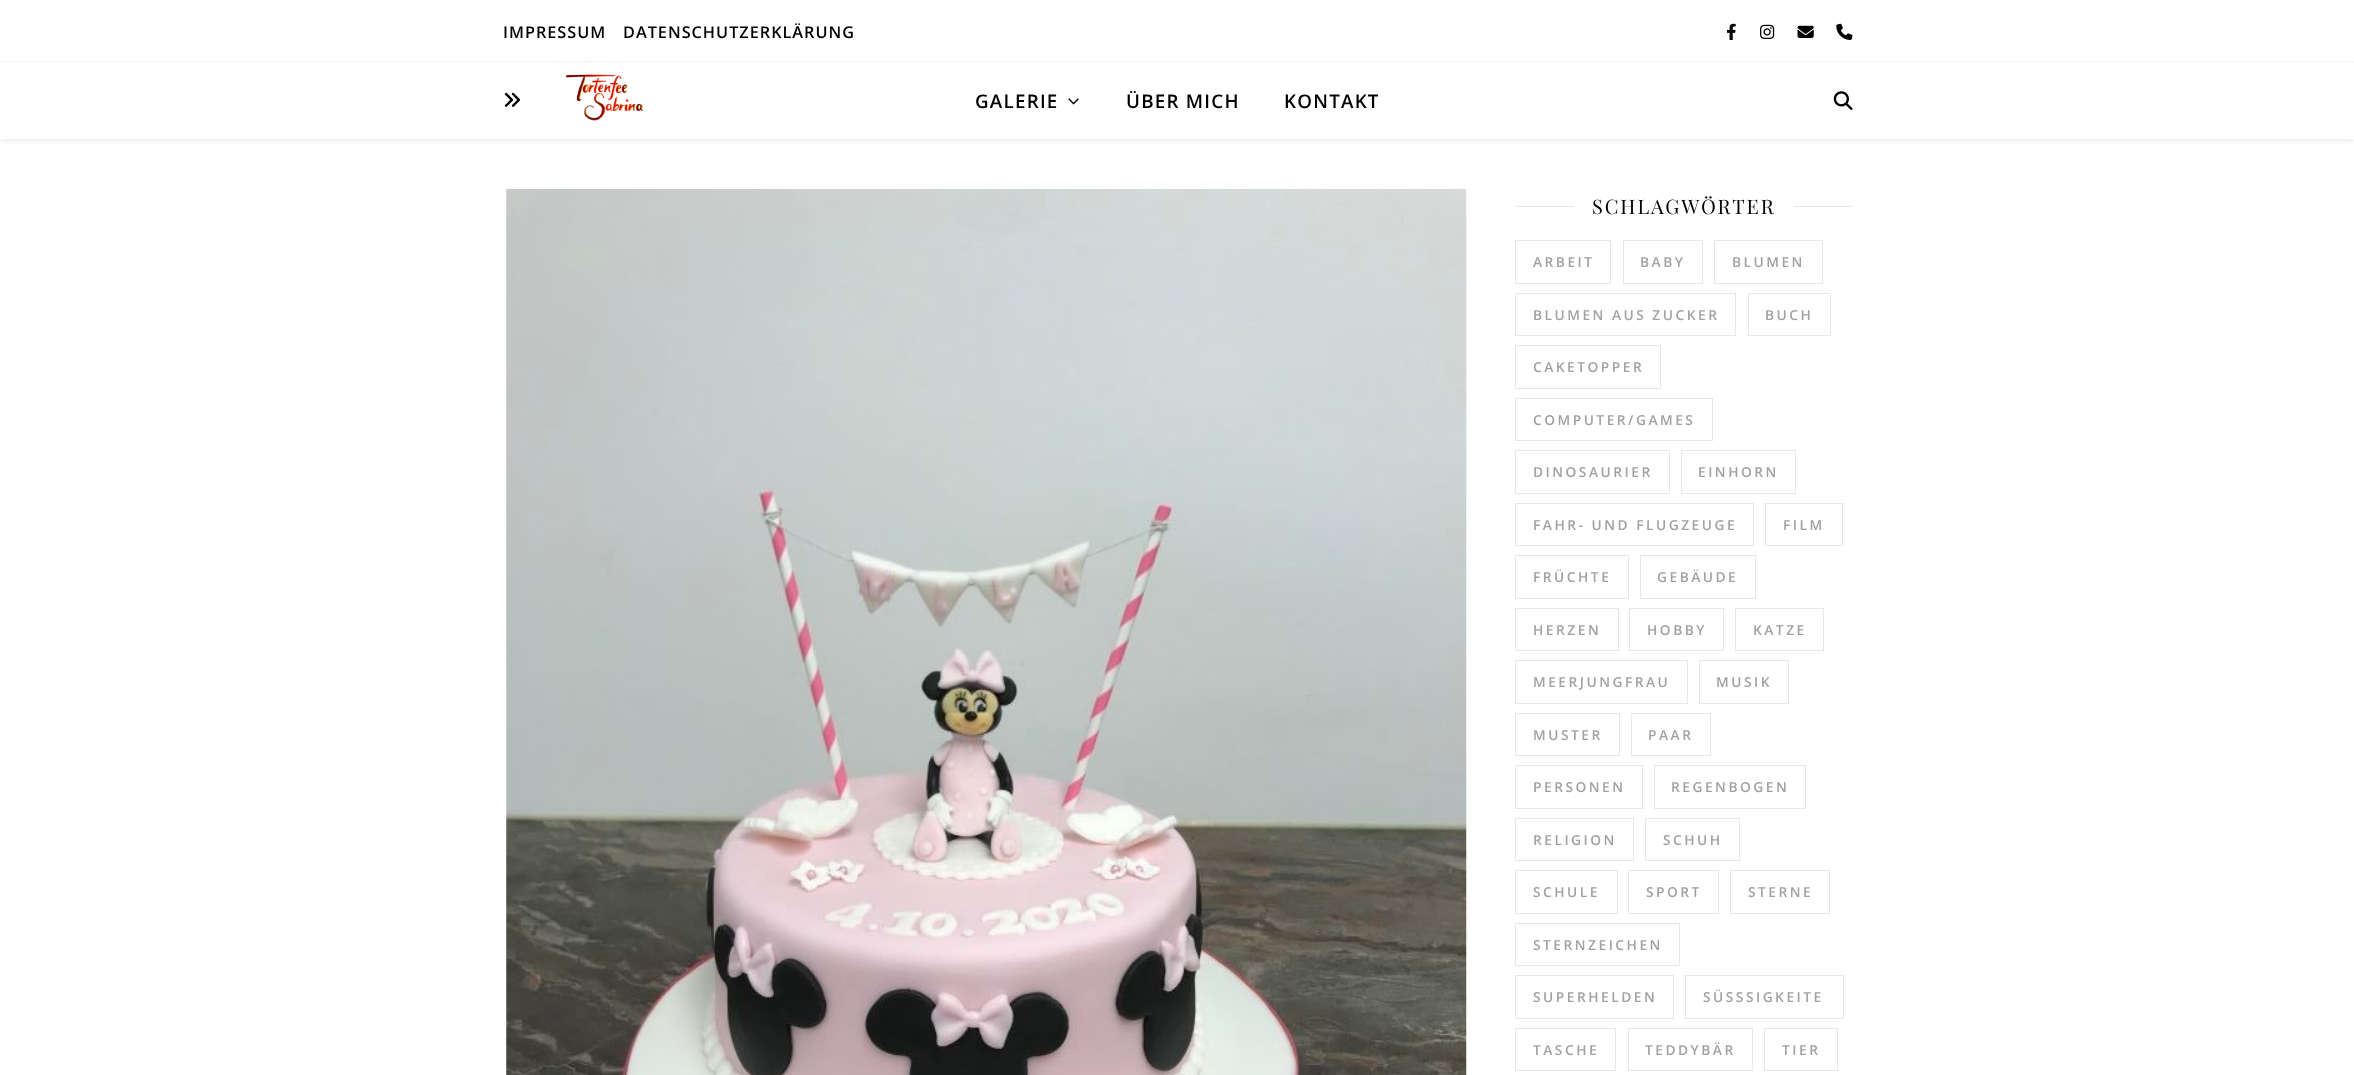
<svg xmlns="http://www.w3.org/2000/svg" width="2354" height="1075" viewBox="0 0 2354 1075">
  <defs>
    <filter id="blur1" x="-50%" y="-200%" width="200%" height="500%"><feGaussianBlur stdDeviation="3"/></filter>
  </defs>
  <rect width="100%" height="100%" fill="#ffffff"/>
  <text x="503" y="38" font-family="Open Sans" font-size="16.25" font-weight="600" letter-spacing="1" fill="#000000">IMPRESSUM</text>
  <text x="623" y="38" font-family="Open Sans" font-size="16.25" font-weight="600" letter-spacing="1" fill="#000000">DATENSCHUTZERKLÄRUNG</text>
  <image x="1726" y="23" width="10" height="17" href="img1.png"/>
  <image x="1760" y="24" width="15" height="15" href="img2.png"/>
  <image x="1797" y="25" width="17" height="13" href="img3.png"/>
  <image x="1836" y="23" width="17" height="17" href="img4.png"/>
  <rect x="0" y="64" width="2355" height="76" fill="#000000" fill-opacity="0.1" filter="url(#blur1)"/>
  <rect x="0" y="63" width="2354" height="76" fill="#ffffff"/>
  <image x="504" y="92" width="17" height="15" href="img5.png"/>
  <image x="565" y="62" width="79" height="59" href="img6.png"/>
  <text x="975" y="108" font-family="Open Sans" font-size="18.75" font-weight="600" letter-spacing="1.25" fill="#000000">GALERIE</text>
  <image x="1068" y="98" width="11" height="7" href="img7.png"/>
  <text x="1126" y="108" font-family="Open Sans" font-size="18.75" font-weight="600" letter-spacing="1.25" fill="#000000">ÜBER MICH</text>
  <text x="1284" y="108" font-family="Open Sans" font-size="18.75" font-weight="600" letter-spacing="1.25" fill="#000000">KONTAKT</text>
  <image x="1833" y="91" width="20" height="19" href="img8.png"/>
  <image x="506" y="188" width="961" height="887" href="img9.png"/>
  <rect x="1515" y="206" width="59" height="1" fill="#e8e8e8"/>
  <text x="1592" y="214" font-family="Playfair Display" font-size="20" letter-spacing="1.9" fill="#000000">SCHLAGWÖRTER</text>
  <rect x="1794" y="206" width="59" height="1" fill="#e8e8e8"/>
  <rect x="1515.5" y="240.5" width="95" height="43" fill="none" stroke="#e8e8e8"/>
  <text x="1533" y="267" font-family="Open Sans" font-size="13.75" font-weight="600" letter-spacing="2.5" fill="#a1a1a1">ARBEIT</text>
  <rect x="1623.5" y="240.5" width="79" height="43" fill="none" stroke="#e8e8e8"/>
  <text x="1640" y="267" font-family="Open Sans" font-size="13.75" font-weight="600" letter-spacing="2.5" fill="#a1a1a1">BABY</text>
  <rect x="1714.5" y="240.5" width="108" height="43" fill="none" stroke="#e8e8e8"/>
  <text x="1732" y="267" font-family="Open Sans" font-size="13.75" font-weight="600" letter-spacing="2.5" fill="#a1a1a1">BLUMEN</text>
  <rect x="1515.5" y="293.5" width="220" height="42" fill="none" stroke="#e8e8e8"/>
  <text x="1533" y="320" font-family="Open Sans" font-size="13.75" font-weight="600" letter-spacing="2.5" fill="#a1a1a1">BLUMEN AUS ZUCKER</text>
  <rect x="1748.5" y="293.5" width="82" height="42" fill="none" stroke="#e8e8e8"/>
  <text x="1765" y="320" font-family="Open Sans" font-size="13.75" font-weight="600" letter-spacing="2.5" fill="#a1a1a1">BUCH</text>
  <rect x="1515.5" y="345.5" width="145" height="43" fill="none" stroke="#e8e8e8"/>
  <text x="1533" y="372" font-family="Open Sans" font-size="13.75" font-weight="600" letter-spacing="2.5" fill="#a1a1a1">CAKETOPPER</text>
  <rect x="1515.5" y="398.5" width="197" height="42" fill="none" stroke="#e8e8e8"/>
  <text x="1533" y="425" font-family="Open Sans" font-size="13.75" font-weight="600" letter-spacing="2.5" fill="#a1a1a1">COMPUTER/GAMES</text>
  <rect x="1515.5" y="450.5" width="154" height="43" fill="none" stroke="#e8e8e8"/>
  <text x="1533" y="477" font-family="Open Sans" font-size="13.75" font-weight="600" letter-spacing="2.5" fill="#a1a1a1">DINOSAURIER</text>
  <rect x="1681.5" y="450.5" width="114" height="43" fill="none" stroke="#e8e8e8"/>
  <text x="1698" y="477" font-family="Open Sans" font-size="13.75" font-weight="600" letter-spacing="2.5" fill="#a1a1a1">EINHORN</text>
  <rect x="1515.5" y="503.5" width="238" height="42" fill="none" stroke="#e8e8e8"/>
  <text x="1533" y="530" font-family="Open Sans" font-size="13.75" font-weight="600" letter-spacing="2.5" fill="#a1a1a1">FAHR- UND FLUGZEUGE</text>
  <rect x="1765.5" y="503.5" width="77" height="42" fill="none" stroke="#e8e8e8"/>
  <text x="1783" y="530" font-family="Open Sans" font-size="13.75" font-weight="600" letter-spacing="2.5" fill="#a1a1a1">FILM</text>
  <rect x="1515.5" y="555.5" width="113" height="43" fill="none" stroke="#e8e8e8"/>
  <text x="1533" y="582" font-family="Open Sans" font-size="13.75" font-weight="600" letter-spacing="2.5" fill="#a1a1a1">FRÜCHTE</text>
  <rect x="1640.5" y="555.5" width="115" height="43" fill="none" stroke="#e8e8e8"/>
  <text x="1657" y="582" font-family="Open Sans" font-size="13.75" font-weight="600" letter-spacing="2.5" fill="#a1a1a1">GEBÄUDE</text>
  <rect x="1515.5" y="608.5" width="103" height="42" fill="none" stroke="#e8e8e8"/>
  <text x="1533" y="635" font-family="Open Sans" font-size="13.75" font-weight="600" letter-spacing="2.5" fill="#a1a1a1">HERZEN</text>
  <rect x="1629.5" y="608.5" width="94" height="42" fill="none" stroke="#e8e8e8"/>
  <text x="1647" y="635" font-family="Open Sans" font-size="13.75" font-weight="600" letter-spacing="2.5" fill="#a1a1a1">HOBBY</text>
  <rect x="1735.5" y="608.5" width="88" height="42" fill="none" stroke="#e8e8e8"/>
  <text x="1753" y="635" font-family="Open Sans" font-size="13.75" font-weight="600" letter-spacing="2.5" fill="#a1a1a1">KATZE</text>
  <rect x="1515.5" y="660.5" width="172" height="43" fill="none" stroke="#e8e8e8"/>
  <text x="1533" y="687" font-family="Open Sans" font-size="13.75" font-weight="600" letter-spacing="2.5" fill="#a1a1a1">MEERJUNGFRAU</text>
  <rect x="1699.5" y="660.5" width="89" height="43" fill="none" stroke="#e8e8e8"/>
  <text x="1716" y="687" font-family="Open Sans" font-size="13.75" font-weight="600" letter-spacing="2.5" fill="#a1a1a1">MUSIK</text>
  <rect x="1515.5" y="713.5" width="104" height="42" fill="none" stroke="#e8e8e8"/>
  <text x="1533" y="740" font-family="Open Sans" font-size="13.75" font-weight="600" letter-spacing="2.5" fill="#a1a1a1">MUSTER</text>
  <rect x="1631.5" y="713.5" width="79" height="42" fill="none" stroke="#e8e8e8"/>
  <text x="1648" y="740" font-family="Open Sans" font-size="13.75" font-weight="600" letter-spacing="2.5" fill="#a1a1a1">PAAR</text>
  <rect x="1515.5" y="765.5" width="127" height="43" fill="none" stroke="#e8e8e8"/>
  <text x="1533" y="792" font-family="Open Sans" font-size="13.75" font-weight="600" letter-spacing="2.5" fill="#a1a1a1">PERSONEN</text>
  <rect x="1654.5" y="765.5" width="151" height="43" fill="none" stroke="#e8e8e8"/>
  <text x="1671" y="792" font-family="Open Sans" font-size="13.75" font-weight="600" letter-spacing="2.5" fill="#a1a1a1">REGENBOGEN</text>
  <rect x="1515.5" y="818.5" width="118" height="42" fill="none" stroke="#e8e8e8"/>
  <text x="1533" y="845" font-family="Open Sans" font-size="13.75" font-weight="600" letter-spacing="2.5" fill="#a1a1a1">RELIGION</text>
  <rect x="1645.5" y="818.5" width="94" height="42" fill="none" stroke="#e8e8e8"/>
  <text x="1663" y="845" font-family="Open Sans" font-size="13.75" font-weight="600" letter-spacing="2.5" fill="#a1a1a1">SCHUH</text>
  <rect x="1515.5" y="870.5" width="102" height="43" fill="none" stroke="#e8e8e8"/>
  <text x="1533" y="897" font-family="Open Sans" font-size="13.75" font-weight="600" letter-spacing="2.5" fill="#a1a1a1">SCHULE</text>
  <rect x="1628.5" y="870.5" width="90" height="43" fill="none" stroke="#e8e8e8"/>
  <text x="1646" y="897" font-family="Open Sans" font-size="13.75" font-weight="600" letter-spacing="2.5" fill="#a1a1a1">SPORT</text>
  <rect x="1730.5" y="870.5" width="99" height="43" fill="none" stroke="#e8e8e8"/>
  <text x="1748" y="897" font-family="Open Sans" font-size="13.75" font-weight="600" letter-spacing="2.5" fill="#a1a1a1">STERNE</text>
  <rect x="1515.5" y="923.5" width="164" height="42" fill="none" stroke="#e8e8e8"/>
  <text x="1533" y="950" font-family="Open Sans" font-size="13.75" font-weight="600" letter-spacing="2.5" fill="#a1a1a1">STERNZEICHEN</text>
  <rect x="1515.5" y="975.5" width="158" height="43" fill="none" stroke="#e8e8e8"/>
  <text x="1533" y="1002" font-family="Open Sans" font-size="13.75" font-weight="600" letter-spacing="2.5" fill="#a1a1a1">SUPERHELDEN</text>
  <rect x="1685.5" y="975.5" width="158" height="43" fill="none" stroke="#e8e8e8"/>
  <text x="1703" y="1002" font-family="Open Sans" font-size="13.75" font-weight="600" letter-spacing="2.5" fill="#a1a1a1">SÜSSSIGKEITE</text>
  <rect x="1515.5" y="1028.5" width="100" height="42" fill="none" stroke="#e8e8e8"/>
  <text x="1533" y="1055" font-family="Open Sans" font-size="13.75" font-weight="600" letter-spacing="2.5" fill="#a1a1a1">TASCHE</text>
  <rect x="1628.5" y="1028.5" width="124" height="42" fill="none" stroke="#e8e8e8"/>
  <text x="1645" y="1055" font-family="Open Sans" font-size="13.75" font-weight="600" letter-spacing="2.5" fill="#a1a1a1">TEDDYBÄR</text>
  <rect x="1764.5" y="1028.5" width="73" height="42" fill="none" stroke="#e8e8e8"/>
  <text x="1782" y="1055" font-family="Open Sans" font-size="13.75" font-weight="600" letter-spacing="2.5" fill="#a1a1a1">TIER</text>
</svg>
